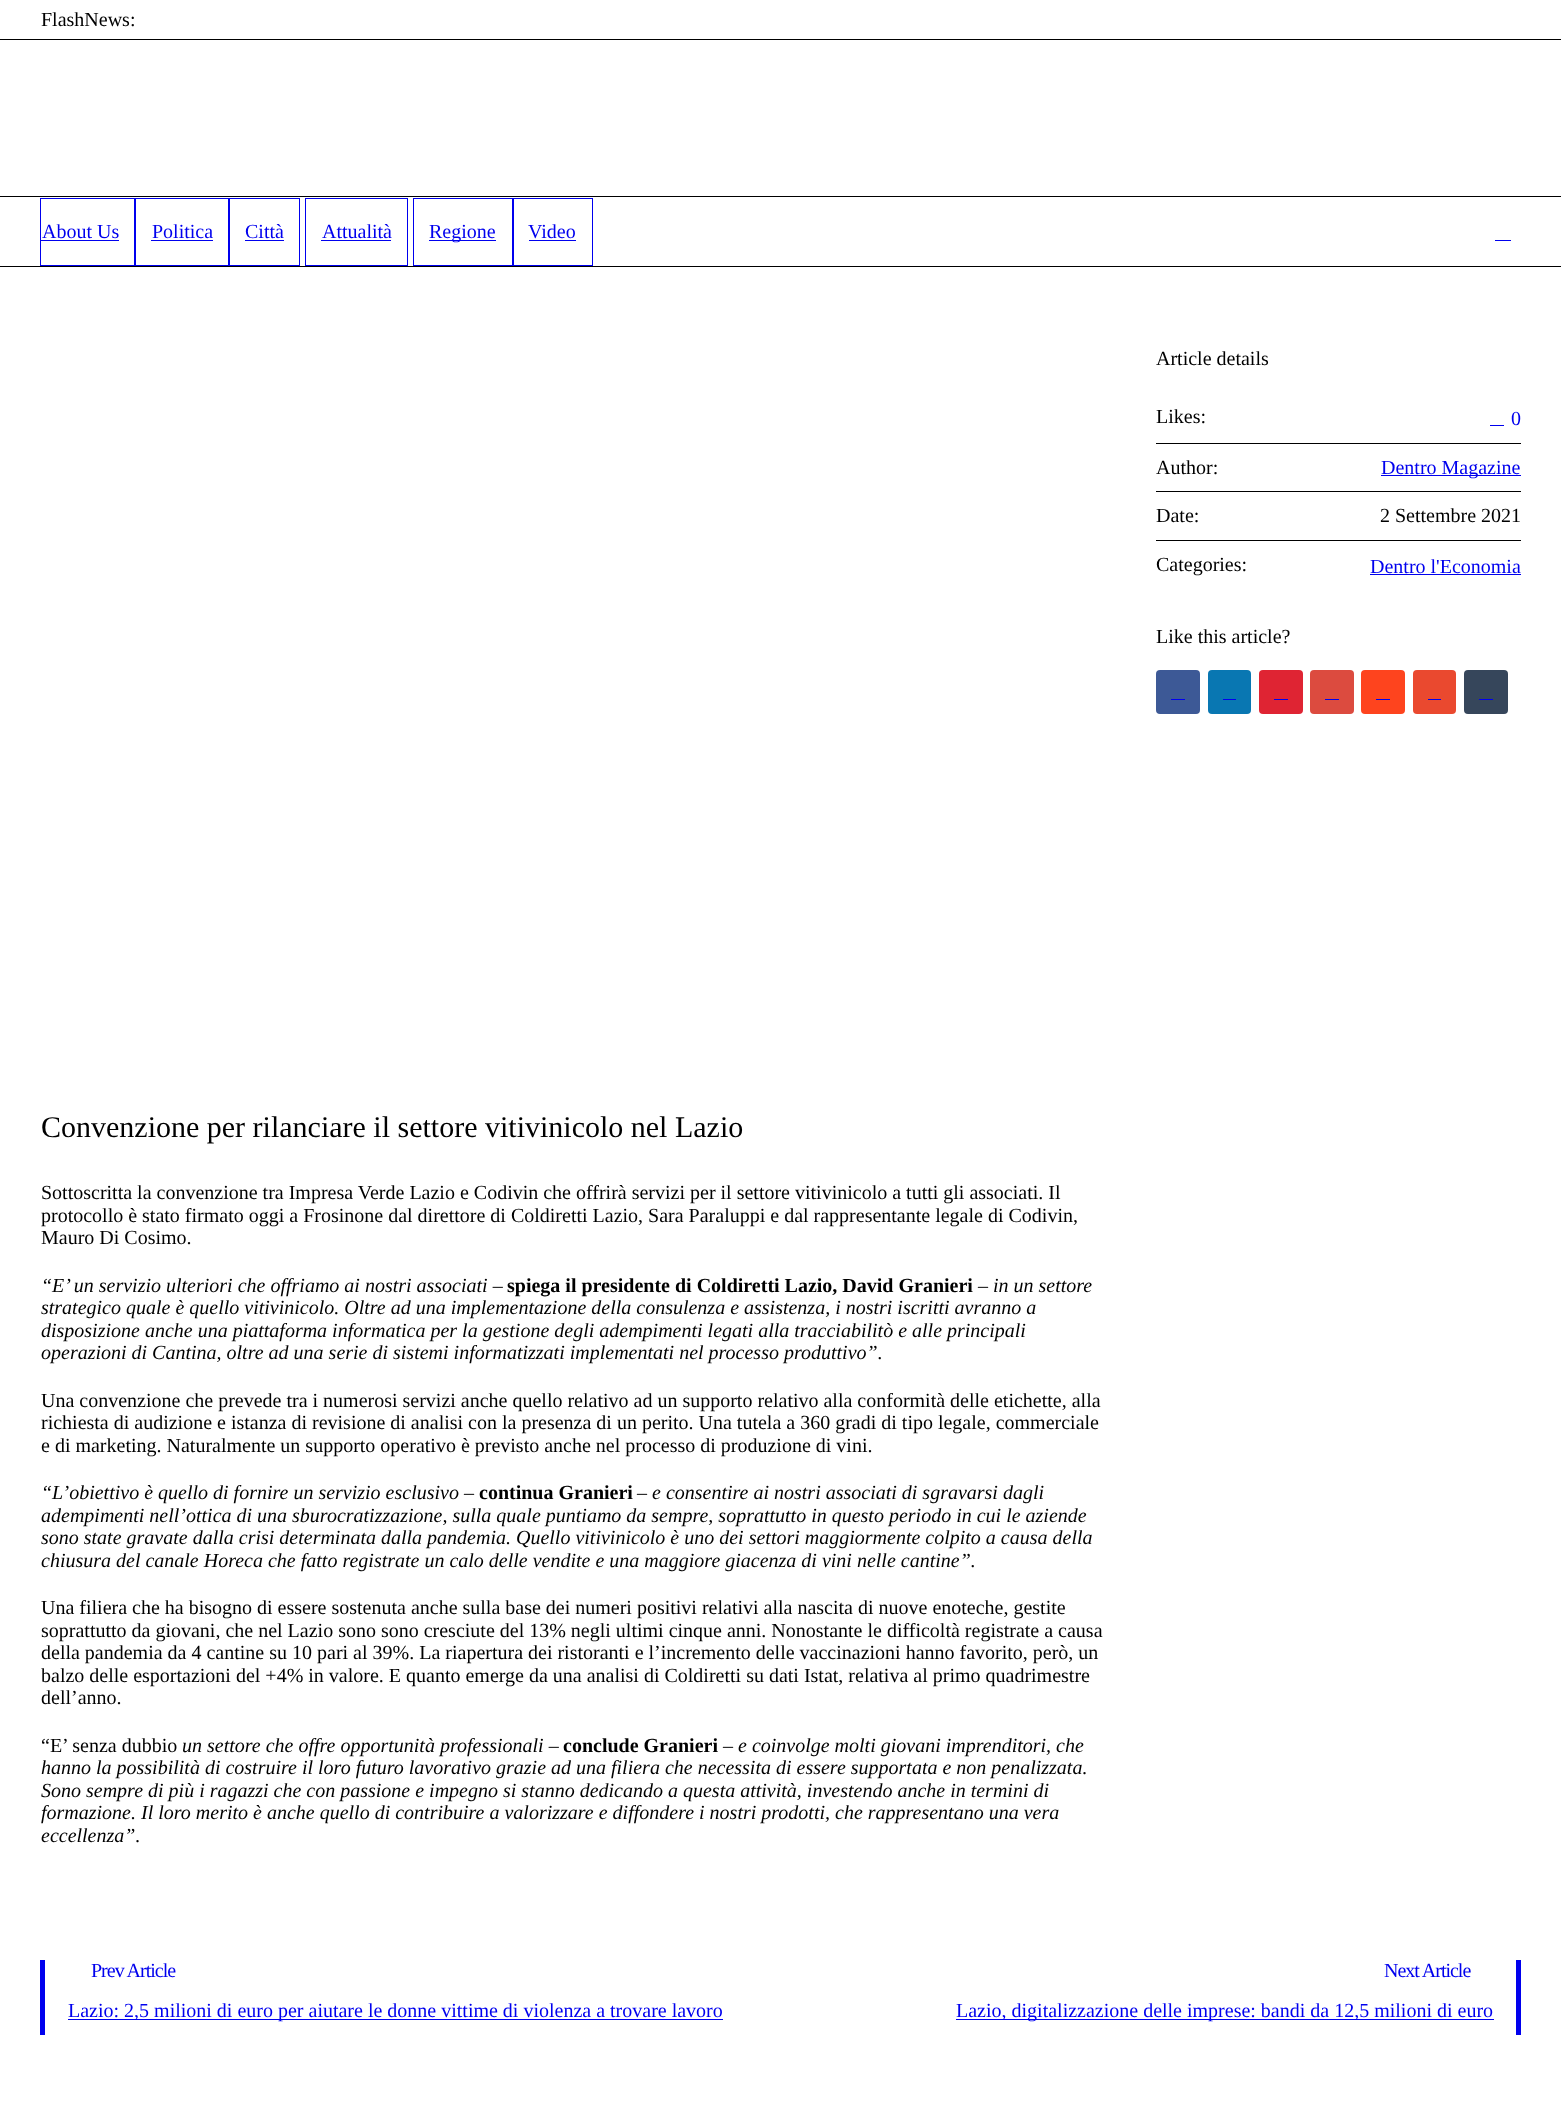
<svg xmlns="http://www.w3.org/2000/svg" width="1561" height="2101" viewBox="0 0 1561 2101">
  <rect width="100%" height="100%" fill="#ffffff"/>
  <rect x="0" y="39" width="1561" height="1" fill="#000000"/>
  <text x="41" y="26" font-family="Liberation Serif" font-size="20" fill="#000000">FlashNews:</text>
  <rect x="0" y="196" width="1561" height="1" fill="#000000"/>
  <rect x="0" y="266" width="1561" height="1" fill="#000000"/>
  <rect x="40.5" y="198.5" width="94" height="67" fill="none" stroke="#0000ee"/>
  <text x="42" y="238" font-family="Liberation Serif" font-size="20" fill="#0000ee">About Us</text>
  <rect x="41" y="240" width="78" height="1" fill="#0000ee"/>
  <rect x="135.5" y="198.5" width="93" height="67" fill="none" stroke="#0000ee"/>
  <text x="152" y="238" font-family="Liberation Serif" font-size="20" fill="#0000ee">Politica</text>
  <rect x="151" y="240" width="62" height="1" fill="#0000ee"/>
  <rect x="229.5" y="198.5" width="70" height="67" fill="none" stroke="#0000ee"/>
  <text x="245" y="238" font-family="Liberation Serif" font-size="20" fill="#0000ee">Città</text>
  <rect x="245" y="240" width="39" height="1" fill="#0000ee"/>
  <rect x="305.5" y="198.5" width="102" height="67" fill="none" stroke="#0000ee"/>
  <text x="322" y="238" font-family="Liberation Serif" font-size="20" fill="#0000ee">Attualità</text>
  <rect x="321" y="240" width="70" height="1" fill="#0000ee"/>
  <rect x="413.5" y="198.5" width="99" height="67" fill="none" stroke="#0000ee"/>
  <rect x="429" y="240" width="67" height="1" fill="#0000ee"/>
  <text x="429" y="238" font-family="Liberation Serif" font-size="20" fill="#0000ee">Regione</text>
  <rect x="513.5" y="198.5" width="79" height="67" fill="none" stroke="#0000ee"/>
  <text x="528" y="238" font-family="Liberation Serif" font-size="20" fill="#0000ee">Video</text>
  <rect x="529" y="240" width="47" height="1" fill="#0000ee"/>
  <rect x="1495" y="240" width="16" height="1" fill="#0000ee"/>
  <text x="1156" y="365" font-family="Liberation Serif" font-size="20" fill="#000000">Article details</text>
  <rect x="1156" y="443" width="365" height="1" fill="#000000"/>
  <text x="1156" y="423" font-family="Liberation Serif" font-size="20" fill="#000000">Likes:</text>
  <rect x="1490" y="425" width="14" height="1" fill="#0000ee"/>
  <text x="1511" y="425" font-family="Liberation Serif" font-size="20" fill="#0000ee">0</text>
  <rect x="1156" y="491" width="365" height="1" fill="#000000"/>
  <text x="1156" y="474" font-family="Liberation Serif" font-size="20" fill="#000000">Author:</text>
  <rect x="1381" y="475" width="140" height="1" fill="#0000ee"/>
  <text x="1381" y="474" font-family="Liberation Serif" font-size="20" fill="#0000ee">Dentro Magazine</text>
  <rect x="1156" y="540" width="365" height="1" fill="#000000"/>
  <text x="1156" y="522" font-family="Liberation Serif" font-size="20" fill="#000000">Date:</text>
  <text x="1380" y="522" font-family="Liberation Serif" font-size="20" fill="#000000">2 Settembre 2021</text>
  <text x="1156" y="571" font-family="Liberation Serif" font-size="20" fill="#000000">Categories:</text>
  <text x="1370" y="573" font-family="Liberation Serif" font-size="20" fill="#0000ee">Dentro l'Economia</text>
  <rect x="1370" y="574" width="151" height="1" fill="#0000ee"/>
  <text x="1156" y="643" font-family="Liberation Serif" font-size="20" fill="#000000">Like this article?</text>
  <rect x="1156" y="670" width="44" height="44" rx="4" fill="#3d5996"/>
  <rect x="1171" y="699" width="14" height="1" fill="#0000ee"/>
  <rect x="1208" y="670" width="43" height="44" rx="4" fill="#0977b2"/>
  <rect x="1223" y="699" width="13" height="1" fill="#0000ee"/>
  <rect x="1259" y="670" width="44" height="44" rx="4" fill="#df2433"/>
  <rect x="1274" y="699" width="14" height="1" fill="#0000ee"/>
  <rect x="1310" y="670" width="44" height="44" rx="4" fill="#dc4b3f"/>
  <rect x="1325" y="699" width="14" height="1" fill="#0000ee"/>
  <rect x="1361" y="670" width="44" height="44" rx="4" fill="#fe441e"/>
  <rect x="1376" y="699" width="14" height="1" fill="#0000ee"/>
  <rect x="1413" y="670" width="43" height="44" rx="4" fill="#ea492f"/>
  <rect x="1428" y="699" width="13" height="1" fill="#0000ee"/>
  <rect x="1464" y="670" width="44" height="44" rx="4" fill="#36465b"/>
  <rect x="1479" y="699" width="14" height="1" fill="#0000ee"/>
  <text x="41" y="1137" font-family="Liberation Serif" font-size="30" fill="#000000">Convenzione per rilanciare il settore vitivinicolo nel Lazio</text>
  <text x="41" y="1199" font-family="Liberation Serif" font-size="20" fill="#000000">Sottoscritta la convenzione tra Impresa Verde Lazio e Codivin che offrirà servizi per il settore vitivinicolo a tutti gli associati. Il</text>
  <text x="41" y="1222" font-family="Liberation Serif" font-size="20" fill="#000000">protocollo è stato firmato oggi a Frosinone dal direttore di Coldiretti Lazio, Sara Paraluppi e dal rappresentante legale di Codivin,</text>
  <text x="41" y="1244" font-family="Liberation Serif" font-size="20" fill="#000000">Mauro Di Cosimo.</text>
  <text x="41" y="1292" font-family="Liberation Serif" font-size="20" font-style="italic" fill="#000000">“E’ un servizio ulteriori che offriamo ai nostri associati –</text>
  <text x="507" y="1292" font-family="Liberation Serif" font-size="20" font-weight="bold" fill="#000000">spiega il presidente di Coldiretti Lazio, David Granieri</text>
  <text x="978" y="1292" font-family="Liberation Serif" font-size="20" font-style="italic" fill="#000000">– in un settore</text>
  <text x="41" y="1314" font-family="Liberation Serif" font-size="20" font-style="italic" fill="#000000">strategico quale è quello vitivinicolo. Oltre ad una implementazione della consulenza e assistenza, i nostri iscritti avranno a</text>
  <text x="41" y="1337" font-family="Liberation Serif" font-size="20" font-style="italic" fill="#000000">disposizione anche una piattaforma informatica per la gestione degli adempimenti legati alla tracciabilitò e alle principali</text>
  <text x="41" y="1359" font-family="Liberation Serif" font-size="20" font-style="italic" fill="#000000">operazioni di Cantina, oltre ad una serie di sistemi informatizzati implementati nel processo produttivo”.</text>
  <text x="41" y="1407" font-family="Liberation Serif" font-size="20" fill="#000000">Una convenzione che prevede tra i numerosi servizi anche quello relativo ad un supporto relativo alla conformità delle etichette, alla</text>
  <text x="41" y="1429" font-family="Liberation Serif" font-size="20" fill="#000000">richiesta di audizione e istanza di revisione di analisi con la presenza di un perito. Una tutela a 360 gradi di tipo legale, commerciale</text>
  <text x="41" y="1452" font-family="Liberation Serif" font-size="20" fill="#000000">e di marketing. Naturalmente un supporto operativo è previsto anche nel processo di produzione di vini.</text>
  <text x="41" y="1499" font-family="Liberation Serif" font-size="20" font-style="italic" fill="#000000">“L’obiettivo è quello di fornire un servizio esclusivo –</text>
  <text x="479" y="1499" font-family="Liberation Serif" font-size="20" font-weight="bold" fill="#000000">continua Granieri</text>
  <text x="637" y="1499" font-family="Liberation Serif" font-size="20" font-style="italic" fill="#000000">– e consentire ai nostri associati di sgravarsi dagli</text>
  <text x="41" y="1522" font-family="Liberation Serif" font-size="20" font-style="italic" fill="#000000">adempimenti nell’ottica di una sburocratizzazione, sulla quale puntiamo da sempre, soprattutto in questo periodo in cui le aziende</text>
  <text x="41" y="1544" font-family="Liberation Serif" font-size="20" font-style="italic" fill="#000000">sono state gravate dalla crisi determinata dalla pandemia. Quello vitivinicolo è uno dei settori maggiormente colpito a causa della</text>
  <text x="41" y="1567" font-family="Liberation Serif" font-size="20" font-style="italic" fill="#000000">chiusura del canale Horeca che fatto registrate un calo delle vendite e una maggiore giacenza di vini nelle cantine”.</text>
  <text x="41" y="1614" font-family="Liberation Serif" font-size="20" fill="#000000">Una filiera che ha bisogno di essere sostenuta anche sulla base dei numeri positivi relativi alla nascita di nuove enoteche, gestite</text>
  <text x="41" y="1637" font-family="Liberation Serif" font-size="20" fill="#000000">soprattutto da giovani, che nel Lazio sono sono cresciute del 13% negli ultimi cinque anni. Nonostante le difficoltà registrate a causa</text>
  <text x="41" y="1659" font-family="Liberation Serif" font-size="20" fill="#000000">della pandemia da 4 cantine su 10 pari al 39%. La riapertura dei ristoranti e l’incremento delle vaccinazioni hanno favorito, però, un</text>
  <text x="41" y="1682" font-family="Liberation Serif" font-size="20" fill="#000000">balzo delle esportazioni del +4% in valore. E quanto emerge da una analisi di Coldiretti su dati Istat, relativa al primo quadrimestre</text>
  <text x="41" y="1704" font-family="Liberation Serif" font-size="20" fill="#000000">dell’anno.</text>
  <text x="41" y="1752" font-family="Liberation Serif" font-size="20" fill="#000000">“E’ senza dubbio</text>
  <text x="182" y="1752" font-family="Liberation Serif" font-size="20" font-style="italic" fill="#000000">un settore che offre opportunità professionali –</text>
  <text x="563" y="1752" font-family="Liberation Serif" font-size="20" font-weight="bold" fill="#000000">conclude Granieri</text>
  <text x="723" y="1752" font-family="Liberation Serif" font-size="20" font-style="italic" fill="#000000">– e coinvolge molti giovani imprenditori, che</text>
  <text x="41" y="1774" font-family="Liberation Serif" font-size="20" font-style="italic" fill="#000000">hanno la possibilità di costruire il loro futuro lavorativo grazie ad una filiera che necessita di essere supportata e non penalizzata.</text>
  <text x="41" y="1797" font-family="Liberation Serif" font-size="20" font-style="italic" fill="#000000">Sono sempre di più i ragazzi che con passione e impegno si stanno dedicando a questa attività, investendo anche in termini di</text>
  <text x="41" y="1819" font-family="Liberation Serif" font-size="20" font-style="italic" fill="#000000">formazione. Il loro merito è anche quello di contribuire a valorizzare e diffondere i nostri prodotti, che rappresentano una vera</text>
  <text x="41" y="1842" font-family="Liberation Serif" font-size="20" font-style="italic" fill="#000000">eccellenza”.</text>
  <rect x="40" y="1960" width="5" height="75" fill="#0000ee"/>
  <text x="91" y="1977" font-family="Liberation Serif" font-size="20" letter-spacing="-1" fill="#0000ee">Prev Article</text>
  <rect x="68" y="2019" width="655" height="1" fill="#0000ee"/>
  <text x="68" y="2017" font-family="Liberation Serif" font-size="20" fill="#0000ee">Lazio: 2,5 milioni di euro per aiutare le donne vittime di violenza a trovare lavoro</text>
  <rect x="1516" y="1960" width="5" height="75" fill="#0000ee"/>
  <text x="1384" y="1977" font-family="Liberation Serif" font-size="20" letter-spacing="-1" fill="#0000ee">Next Article</text>
  <rect x="956" y="2019" width="538" height="1" fill="#0000ee"/>
  <text x="956" y="2017" font-family="Liberation Serif" font-size="20" fill="#0000ee">Lazio, digitalizzazione delle imprese: bandi da 12,5 milioni di euro</text>
</svg>
